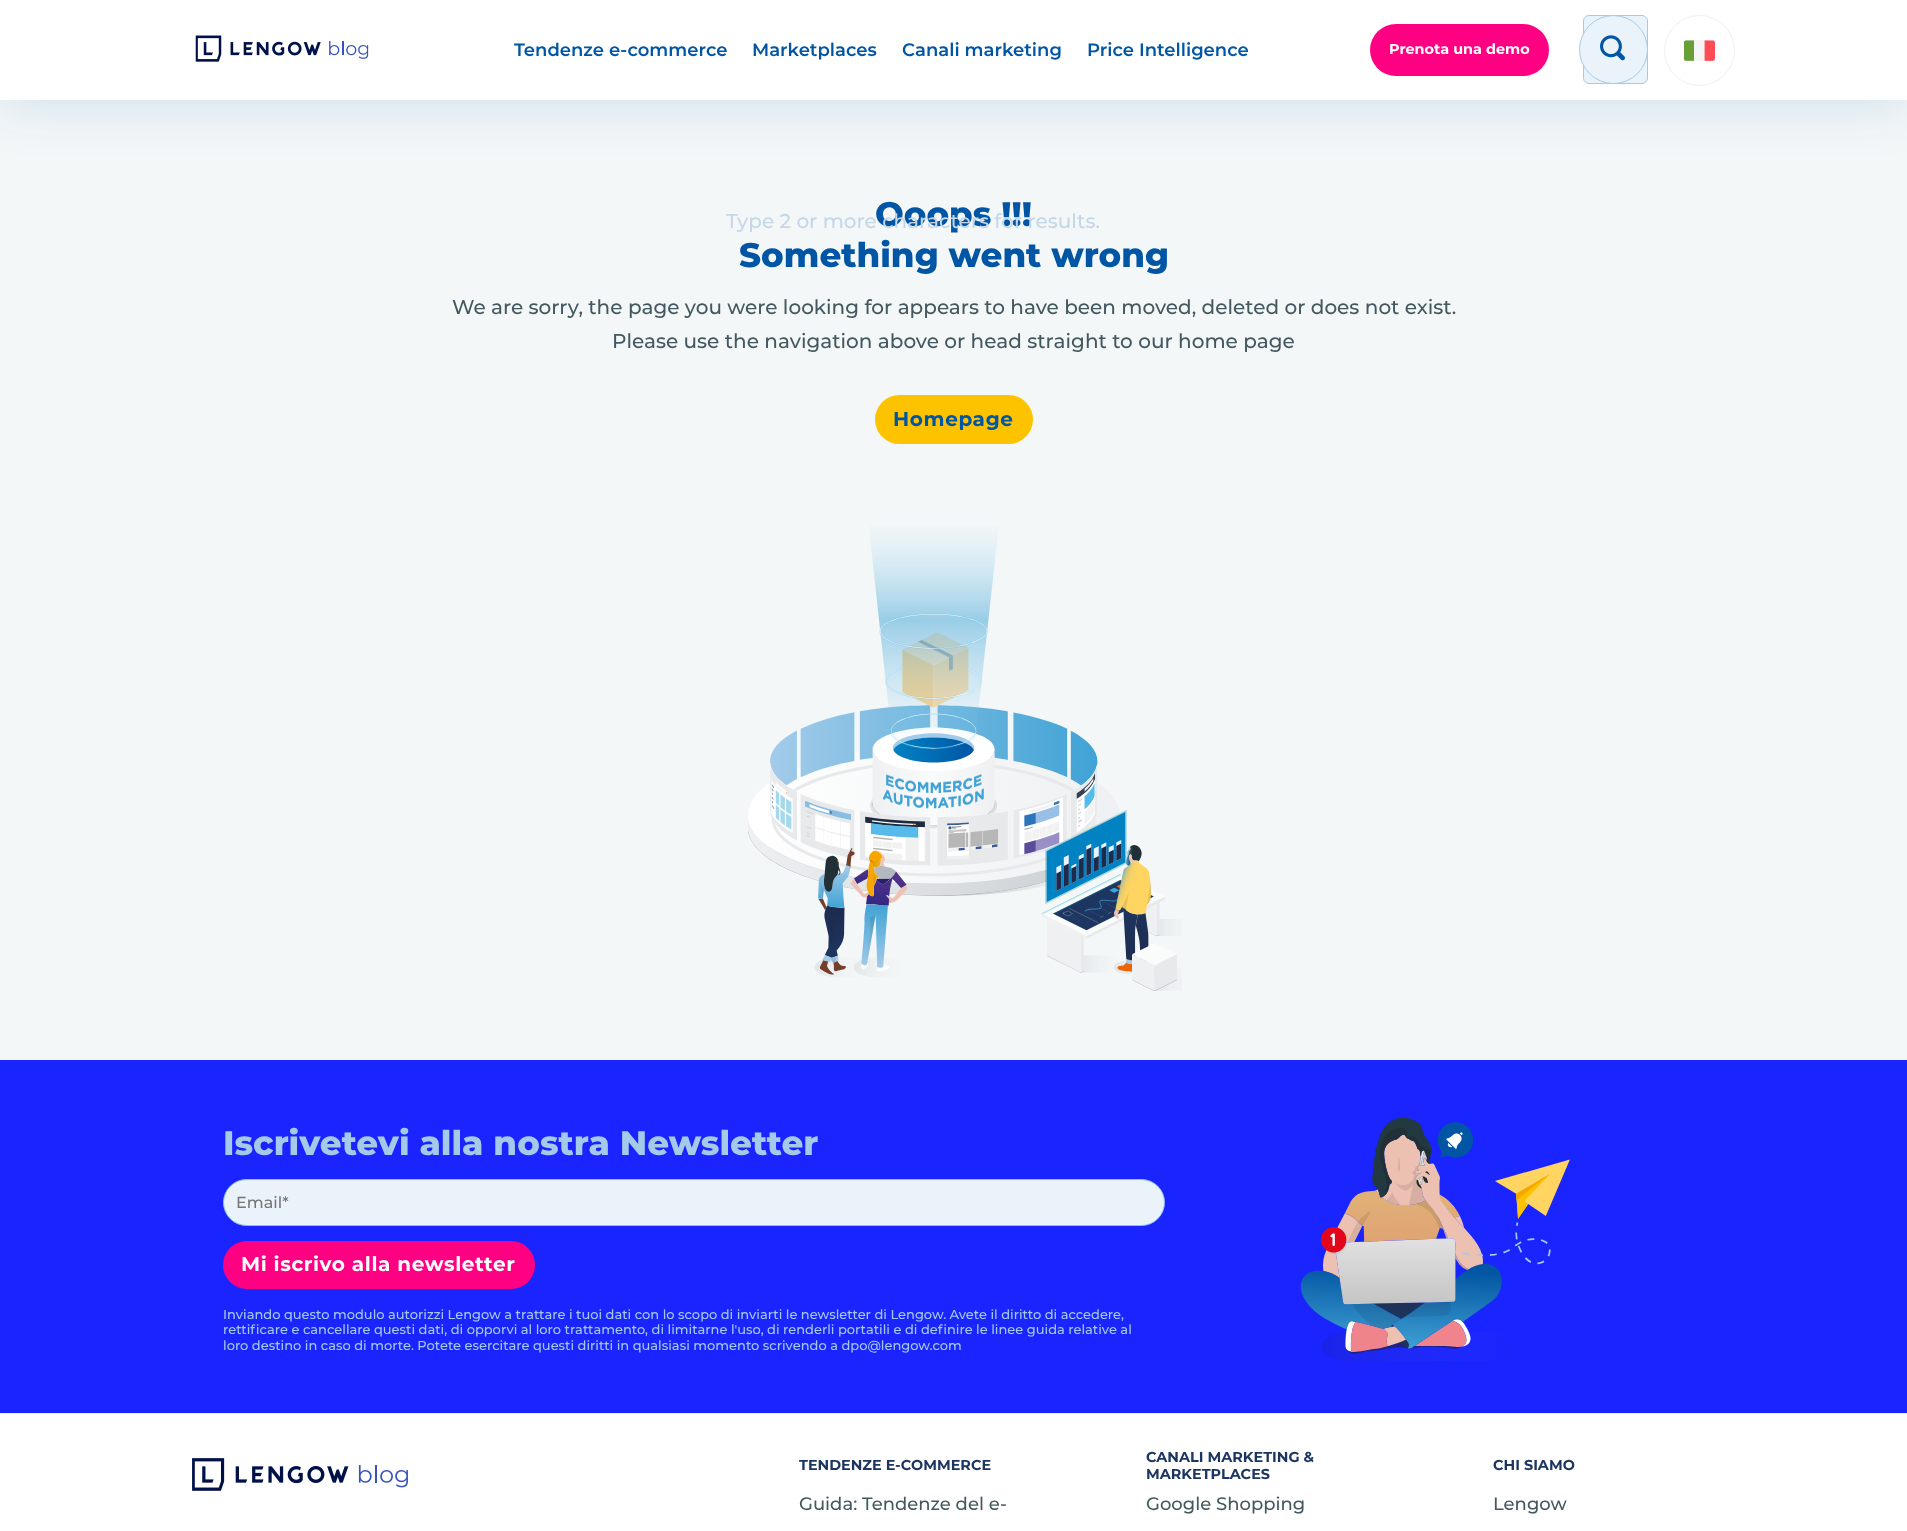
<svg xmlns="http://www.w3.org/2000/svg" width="1907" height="1531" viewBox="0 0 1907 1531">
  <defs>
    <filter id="blur1" x="-50%" y="-200%" width="200%" height="500%"><feGaussianBlur stdDeviation="25"/></filter>
  </defs>
  <rect width="100%" height="100%" fill="#f4f7f8"/>
  <rect x="0" y="6" width="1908" height="100" fill="#0056a4" fill-opacity="0.15" filter="url(#blur1)"/>
  <rect x="0" y="0" width="1907" height="100" fill="#ffffff"/>
  <image x="195" y="35" width="174" height="27" href="img1.png"/>
  <text x="514" y="56" font-family="Montserrat" font-size="18" font-weight="600" fill="#0056a4">Tendenze e-commerce</text>
  <text x="752" y="56" font-family="Montserrat" font-size="18" font-weight="600" fill="#0056a4">Marketplaces</text>
  <text x="902" y="56" font-family="Montserrat" font-size="18" font-weight="600" fill="#0056a4">Canali marketing</text>
  <text x="1087" y="56" font-family="Montserrat" font-size="18" font-weight="600" fill="#0056a4">Price Intelligence</text>
  <rect x="1370" y="24" width="179" height="52" rx="26" fill="#ff0082"/>
  <text x="1389" y="54" font-family="Montserrat" font-size="14.4" font-weight="bold" fill="#ffffff">Prenota una demo</text>
  <circle cx="1699.5" cy="50.5" r="35" fill="none" stroke="#ecf1f3"/>
  <image x="1684" y="40" width="31" height="21" href="img2.png"/>
  <rect x="1583.5" y="15.5" width="64" height="68" rx="5.5" fill="#eaf2fa" stroke="#a3cbe9"/>
  <circle cx="1613.5" cy="49.5" r="34" fill="#eaf2fa" stroke="#a3cbe9"/>
  <image x="1600" y="35" width="25" height="26" href="img3.png"/>
  <text x="875" y="226" font-family="Montserrat" font-size="34" font-weight="800" fill="#0056a4">Ooops !!!</text>
  <text x="726" y="228" font-family="Montserrat" font-size="20" font-weight="500" fill="#c4d7e8">Type 2 or more characters for results.</text>
  <text x="739" y="267" font-family="Montserrat" font-size="34" font-weight="800" fill="#0056a4">Something went wrong</text>
  <text x="452" y="314" font-family="Montserrat" font-size="20" font-weight="500" fill="#445860">We are sorry, the page you were looking for appears to have been moved, deleted or does not exist.</text>
  <text x="612" y="348" font-family="Montserrat" font-size="20" font-weight="500" fill="#445860">Please use the navigation above or head straight to our home page</text>
  <rect x="875" y="395" width="158" height="49" rx="24.5" fill="#fdc300"/>
  <text x="893" y="426" font-family="Montserrat" font-size="20" font-weight="bold" letter-spacing="0.6" fill="#0056a4">Homepage</text>
  <image x="748" y="526" width="434" height="465" href="img4.png"/>
  <rect x="0" y="1060" width="1907" height="353" fill="#1924fe"/>
  <text x="223" y="1155" font-family="Montserrat" font-size="34" font-weight="800" fill="#a3cbe9">Iscrivetevi alla nostra Newsletter</text>
  <rect x="223.5" y="1179.5" width="941" height="46" rx="23" fill="#eaf2fa" stroke="#8bbff2"/>
  <text x="236" y="1208" font-family="Montserrat" font-size="16" font-weight="500" fill="#757575">Email*</text>
  <rect x="223" y="1241" width="312" height="48" rx="24" fill="#ff0082"/>
  <text x="241" y="1271" font-family="Montserrat" font-size="20" font-weight="bold" letter-spacing="0.6" fill="#ffffff">Mi iscrivo alla newsletter</text>
  <text x="223" y="1319" font-family="Montserrat" font-size="13" font-weight="500" fill="#a3cbe9">Inviando questo modulo autorizzi Lengow a trattare i tuoi dati con lo scopo di inviarti le newsletter di Lengow. Avete il diritto di accedere,</text>
  <text x="223" y="1334" font-family="Montserrat" font-size="13" font-weight="500" fill="#a3cbe9">rettificare e cancellare questi dati, di opporvi al loro trattamento, di limitarne l'uso, di renderli portatili e di definire le linee guida relative al</text>
  <text x="223" y="1350" font-family="Montserrat" font-size="13" font-weight="500" fill="#a3cbe9">loro destino in caso di morte. Potete esercitare questi diritti in qualsiasi momento scrivendo a dpo@lengow.com</text>
  <image x="1300" y="1117" width="270" height="244" href="img5.png"/>
  <rect x="0" y="1414" width="1907" height="117" fill="#ffffff"/>
  <rect x="0" y="1413" width="1907" height="1" fill="#ecf1f3"/>
  <image x="192" y="1458" width="216" height="33" href="img6.png"/>
  <text x="799" y="1470" font-family="Montserrat" font-size="14.4" font-weight="bold" fill="#1d3661">TENDENZE E-COMMERCE</text>
  <text x="799" y="1510" font-family="Montserrat" font-size="18" font-weight="500" fill="#445860">Guida: Tendenze del e-</text>
  <text x="1146" y="1462" font-family="Montserrat" font-size="14.4" font-weight="bold" fill="#1d3661">CANALI MARKETING &amp;</text>
  <text x="1146" y="1479" font-family="Montserrat" font-size="14.4" font-weight="bold" fill="#1d3661">MARKETPLACES</text>
  <text x="1146" y="1510" font-family="Montserrat" font-size="18" font-weight="500" fill="#445860">Google Shopping</text>
  <text x="1493" y="1470" font-family="Montserrat" font-size="14.4" font-weight="bold" fill="#1d3661">CHI SIAMO</text>
  <text x="1493" y="1510" font-family="Montserrat" font-size="18" font-weight="500" fill="#445860">Lengow</text>
</svg>
